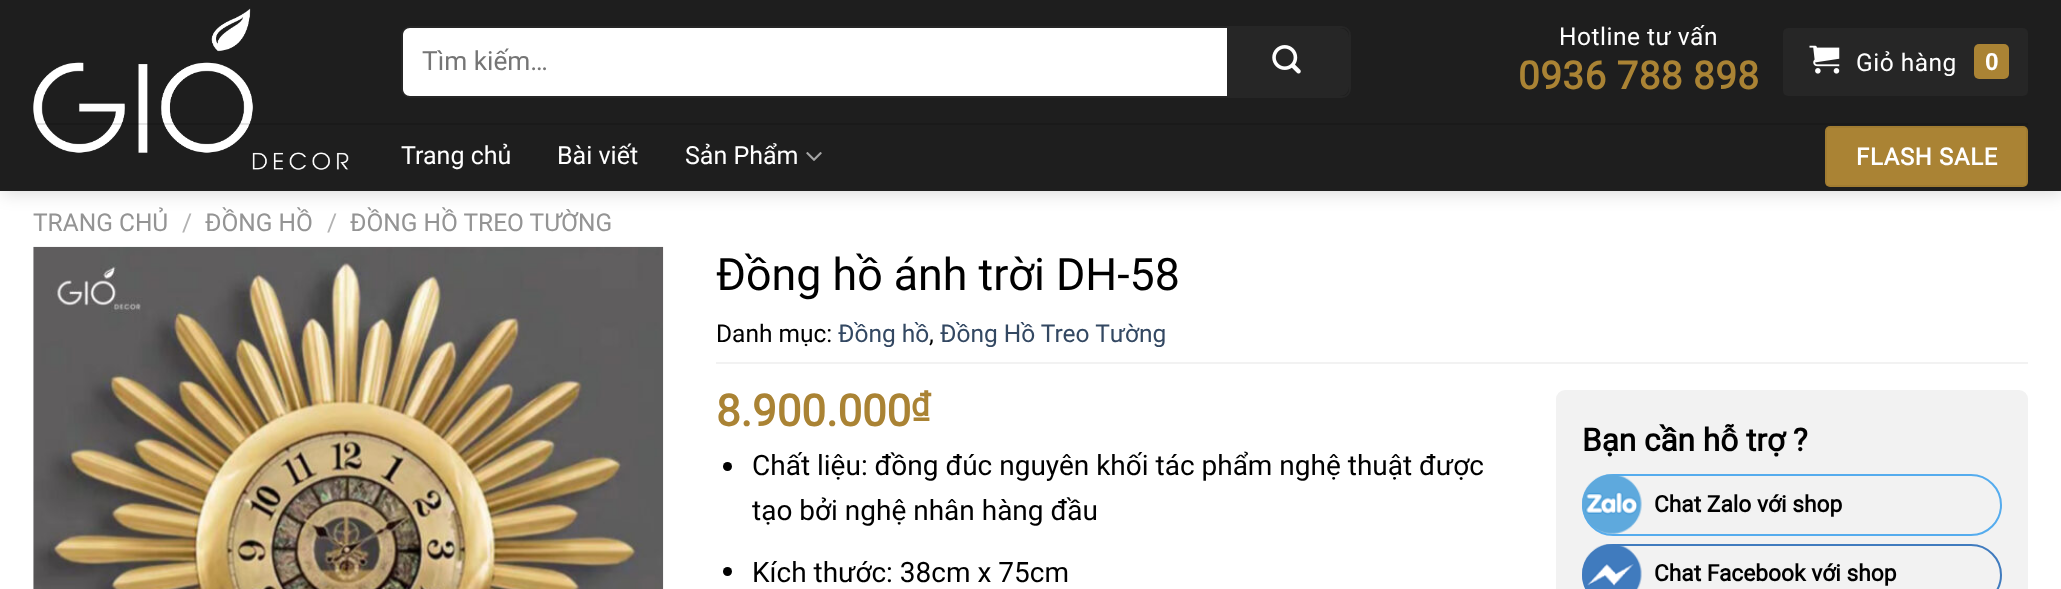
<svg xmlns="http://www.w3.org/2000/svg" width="2061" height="589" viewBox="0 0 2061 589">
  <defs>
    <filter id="blur1" x="-50%" y="-200%" width="200%" height="500%"><feGaussianBlur stdDeviation="9"/></filter>
  </defs>
  <rect width="100%" height="100%" fill="#ffffff"/>
  <rect x="2" y="2" width="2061" height="191" fill="#000000" fill-opacity="0.15" filter="url(#blur1)"/>
  <rect x="0" y="0" width="2061" height="191" fill="#1e1e1e"/>
  <image x="33" y="8" width="316" height="162" href="img1.png"/>
  <rect x="402" y="27" width="948" height="70" rx="8" fill="none" stroke="#262626" stroke-width="2"/>
  <path d="M410 28H1227V96H410C406 96 403 93 403 89V35C403 31 406 28 410 28Z" fill="#ffffff"/>
  <text x="422" y="70" font-family="Roboto" font-size="26.25" fill="#757575">Tìm kiếm…</text>
  <path d="M1227 28H1340C1345 28 1349 32 1349 37V87C1349 92 1345 96 1340 96H1227Z" fill="#262626"/>
  <image x="1272" y="45" width="29" height="29" href="img2.png"/>
  <text x="1559" y="45" font-family="Roboto" font-size="24.5" letter-spacing="0.5" fill="#ffffff">Hotline tư vấn</text>
  <text x="1518" y="89" font-family="Roboto" font-size="38.5" font-weight="bold" letter-spacing="0.5" fill="#aa8334">0936 788 898</text>
  <rect x="1783" y="28" width="245" height="68" rx="5" fill="#262626"/>
  <text x="1856" y="71" font-family="Roboto" font-size="24.5" letter-spacing="0.5" fill="#ffffff">Giỏ hàng</text>
  <image x="1809" y="45" width="31" height="29" href="img3.png"/>
  <rect x="1974" y="44" width="35" height="35" rx="5" fill="#aa8334"/>
  <text x="1985" y="70" font-family="Liberation Sans" font-size="24.5" font-weight="bold" letter-spacing="-1" fill="#ffffff">0</text>
  <rect x="33" y="123" width="1995" height="2" fill="#000000" fill-opacity="0.1"/>
  <text x="401" y="164" font-family="Roboto" font-size="25" fill="#ffffff">Trang chủ</text>
  <text x="557" y="164" font-family="Roboto" font-size="25" fill="#ffffff">Bài viết</text>
  <text x="685" y="164" font-family="Roboto" font-size="25" fill="#ffffff">Sản Phẩm</text>
  <image x="806" y="152" width="16" height="9" href="img4.png"/>
  <rect x="1825" y="126" width="203" height="61" rx="5" fill="#aa8334"/>
  <rect x="1826" y="127" width="201" height="59" fill="none" stroke="#000000" stroke-opacity="0.05" stroke-width="2"/>
  <text x="1856" y="165" font-family="Roboto" font-size="23.75" font-weight="bold" letter-spacing="0.75" fill="#ffffff">FLASH SALE</text>
  <text x="33" y="231" font-family="Roboto" font-size="24.5" fill="#949494">TRANG CHỦ</text>
  <text x="182" y="231" font-family="Roboto" font-size="24.5" fill="#b2b2b2">/</text>
  <text x="205" y="231" font-family="Roboto" font-size="24.5" fill="#949494">ĐỒNG HỒ</text>
  <text x="327" y="231" font-family="Roboto" font-size="24.5" fill="#b2b2b2">/</text>
  <text x="350" y="231" font-family="Roboto" font-size="24.5" fill="#949494">ĐỒNG HỒ TREO TƯỜNG</text>
  <image x="33" y="246" width="631" height="343" href="img5.png"/>
  <rect x="716" y="362" width="1312" height="2" fill="#f2f2f2"/>
  <text x="716" y="290" font-family="Roboto" font-size="44.75" fill="#000000">Đồng hồ ánh trời DH-58</text>
  <text x="716" y="342" font-family="Roboto" font-size="24.5" fill="#000000">Danh mục:</text>
  <text x="838" y="342" font-family="Roboto" font-size="24.5" fill="#334862">Đồng hồ</text>
  <text x="929" y="342" font-family="Roboto" font-size="24.5" fill="#000000">,</text>
  <text x="940" y="342" font-family="Roboto" font-size="24.5" fill="#334862">Đồng Hồ Treo Tường</text>
  <text x="716" y="426" font-family="Roboto" font-size="43.75" font-weight="bold" fill="#aa8334">8.900.000</text>
  <text x="911" y="416" font-family="Roboto" font-size="33" font-weight="bold" fill="#aa8334">₫</text>
  <circle cx="727.5" cy="466.5" r="4.5" fill="#000000"/>
  <text x="752" y="475" font-family="Roboto" font-size="28" fill="#000000">Chất liệu: đồng đúc nguyên khối tác phẩm nghệ thuật được</text>
  <text x="752" y="520" font-family="Roboto" font-size="28" fill="#000000">tạo bởi nghệ nhân hàng đầu</text>
  <circle cx="727.5" cy="571.5" r="4.5" fill="#000000"/>
  <text x="752" y="582" font-family="Roboto" font-size="28" fill="#000000">Kích thước: 38cm x 75cm</text>
  <rect x="1556" y="390" width="472" height="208" rx="9" fill="#f2f2f2"/>
  <text x="1582" y="451" font-family="Roboto" font-size="31.5" font-weight="bold" fill="#000000">Bạn cần hỗ trợ ?</text>
  <rect x="1583" y="475" width="418" height="60" rx="30" fill="none" stroke="#55acee" stroke-width="2"/>
  <image x="1582" y="474" width="60" height="60" href="img6.png"/>
  <text x="1654" y="512" font-family="Roboto" font-size="22.75" font-weight="bold" fill="#000000">Chat Zalo với shop</text>
  <rect x="1583" y="545" width="418" height="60" rx="30" fill="none" stroke="#407bbe" stroke-width="2"/>
  <image x="1582" y="544" width="60" height="45" href="img7.png"/>
  <text x="1654" y="581" font-family="Roboto" font-size="22.75" font-weight="bold" fill="#000000">Chat Facebook với shop</text>
</svg>
